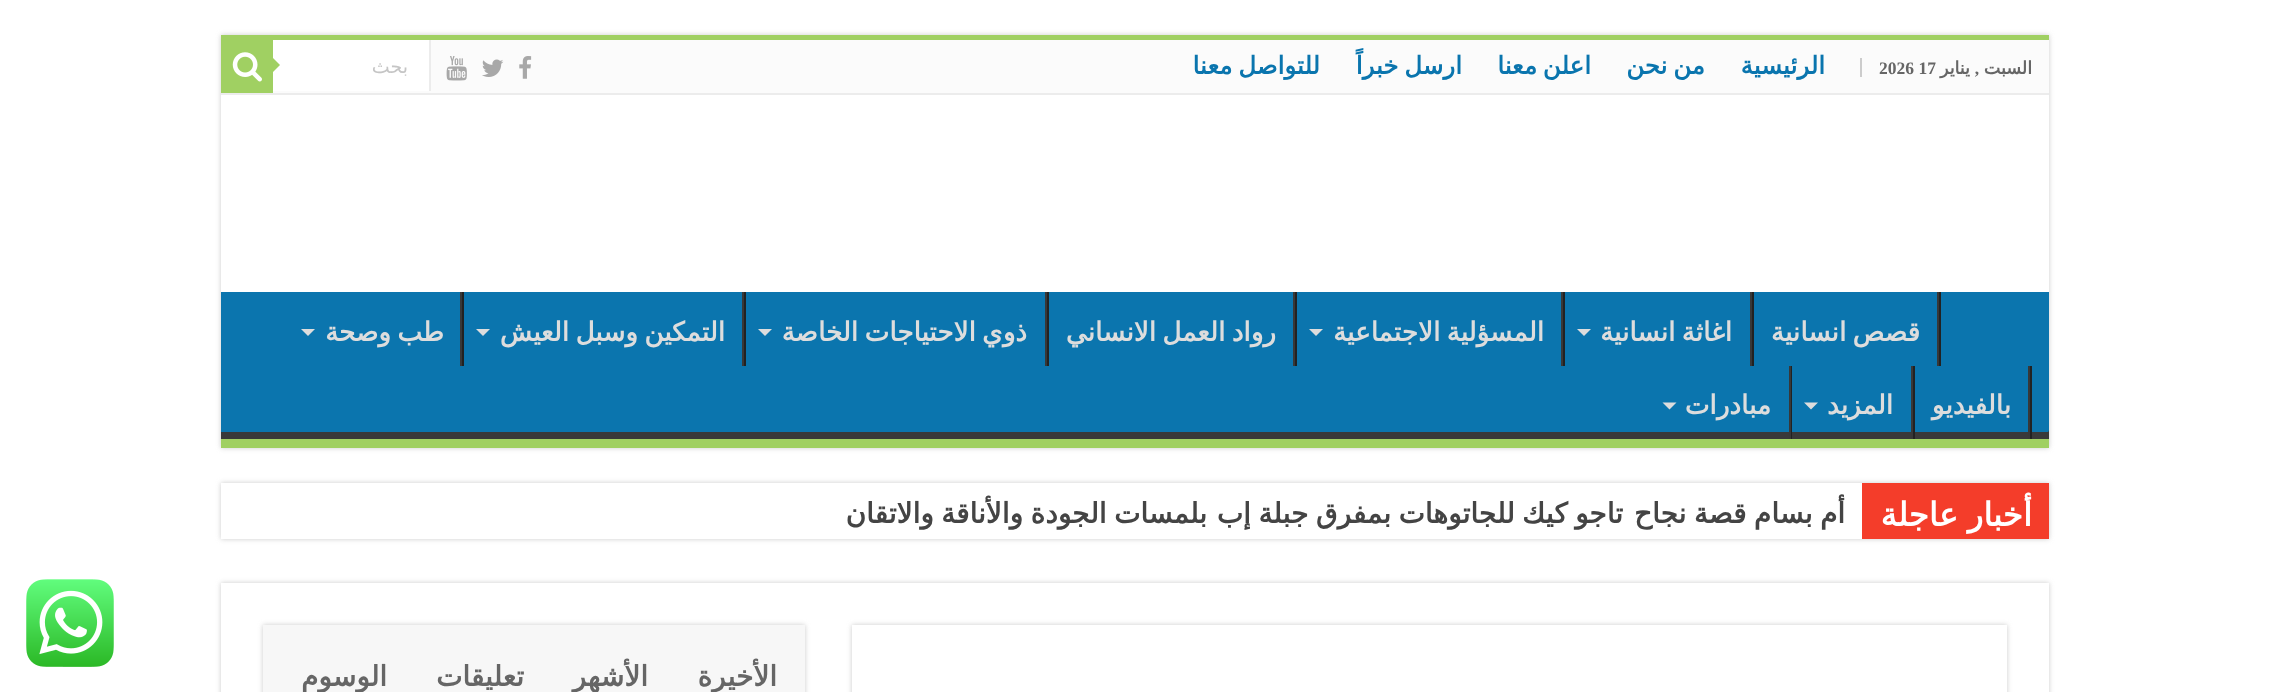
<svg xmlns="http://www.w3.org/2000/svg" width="2269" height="692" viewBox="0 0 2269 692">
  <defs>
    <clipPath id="clip1"><path d="M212 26H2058V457H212ZM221 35H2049V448H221Z" clip-rule="evenodd"/></clipPath>
    <filter id="blur1" x="-50%" y="-200%" width="200%" height="500%"><feGaussianBlur stdDeviation="2.5"/></filter>
    <clipPath id="clip2"><rect x="221" y="292" width="1828" height="147"/></clipPath>
    <clipPath id="clip3"><path d="M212 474H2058V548H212ZM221 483H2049V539H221Z" clip-rule="evenodd"/></clipPath>
    <clipPath id="clip4"><path d="M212 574H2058V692H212ZM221 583H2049V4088H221Z" clip-rule="evenodd"/></clipPath>
  </defs>
  <rect width="100%" height="100%" fill="#ffffff"/>
  <g clip-path="url(#clip1)">
    <rect x="221" y="35" width="1828" height="413" fill="#cacaca" filter="url(#blur1)"/>
  </g>
  <rect x="221" y="35" width="1828" height="5" fill="#a0d062"/>
  <rect x="273" y="40" width="1776" height="53" fill="#fbfbfb"/>
  <rect x="221" y="93" width="1828" height="2" fill="#ececec"/>
  <rect x="1860" y="58" width="2" height="19" fill="#cccccc"/>
  <text x="2032" y="74" font-family="DejaVu Sans" font-size="17.5" font-weight="bold" direction="rtl" fill="#666666">السبت</text>
  <text x="1979" y="74" font-family="Liberation Serif" font-size="17.5" font-weight="bold" direction="rtl" fill="#666666">,</text>
  <text x="1970" y="74" font-family="DejaVu Sans" font-size="17.5" font-weight="bold" direction="rtl" fill="#666666">يناير</text>
  <text x="1879" y="74" font-family="Liberation Serif" font-size="17.5" font-weight="bold" fill="#666666">2026 17</text>
  <text x="1825" y="74" font-family="DejaVu Sans" font-size="24.5" font-weight="bold" direction="rtl" fill="#0a75ae">الرئيسية</text>
  <text x="1705" y="74" word-spacing="-2" font-family="DejaVu Sans" font-size="24.5" font-weight="bold" direction="rtl" fill="#0a75ae">من نحن</text>
  <text x="1591" y="74" word-spacing="-2" font-family="DejaVu Sans" font-size="24.5" font-weight="bold" direction="rtl" fill="#0a75ae">اعلن معنا</text>
  <text x="1462" y="74" word-spacing="-2" font-family="DejaVu Sans" font-size="24.5" font-weight="bold" direction="rtl" fill="#0a75ae">ارسل خبراً</text>
  <text x="1320" y="74" word-spacing="-2" font-family="DejaVu Sans" font-size="24.5" font-weight="bold" direction="rtl" fill="#0a75ae">للتواصل معنا</text>
  <image x="519" y="56" width="13" height="23" href="img1.png"/>
  <image x="482" y="59" width="22" height="18" href="img2.png"/>
  <image x="446" y="56" width="21" height="25" href="img3.png"/>
  <rect x="273" y="40" width="156" height="51" fill="#ffffff"/>
  <rect x="429" y="40" width="2" height="51" fill="#ececec"/>
  <text x="408" y="73" font-family="DejaVu Sans" font-size="19" direction="rtl" fill="#c5c5c5">بحث</text>
  <rect x="221" y="40" width="52" height="53" fill="#a0d062"/>
  <image x="232" y="52" width="30" height="30" href="img4.png"/>
  <path d="M273 72V58L280 65Z" fill="#a0d062"/>
  <rect x="221" y="292" width="1828" height="140" fill="#0b75ae"/>
  <g clip-path="url(#clip2)">
    <path d="M47 119H2222V612H47ZM219 282H2048C2048 282 2049 283 2049 284V430C2049 431 2048 432 2048 432H219C218 432 217 431 217 430V284C217 283 218 282 219 282Z" fill="#393939" fill-rule="evenodd"/>
  </g>
  <rect x="221" y="439" width="1828" height="9" fill="#a0d062"/>
  <rect x="1939" y="292" width="2" height="74" fill="#222222"/>
  <rect x="1937" y="292" width="2" height="74" fill="#383838"/>
  <text x="1920" y="341" word-spacing="-2" font-family="DejaVu Sans" font-size="26.25" font-weight="bold" direction="rtl" fill="#dddddd">قصص انسانية</text>
  <rect x="1752" y="292" width="2" height="74" fill="#222222"/>
  <rect x="1750" y="292" width="2" height="74" fill="#383838"/>
  <text x="1732" y="341" word-spacing="-2" font-family="DejaVu Sans" font-size="26.25" font-weight="bold" direction="rtl" fill="#dddddd">اغاثة انسانية</text>
  <path d="M1577 329H1591L1584 336Z" fill="#dddddd"/>
  <rect x="1563" y="292" width="2" height="74" fill="#222222"/>
  <rect x="1561" y="292" width="2" height="74" fill="#383838"/>
  <text x="1544" y="341" word-spacing="-2" font-family="DejaVu Sans" font-size="26.25" font-weight="bold" direction="rtl" fill="#dddddd">المسؤلية الاجتماعية</text>
  <path d="M1309 329H1323L1316 336Z" fill="#dddddd"/>
  <rect x="1295" y="292" width="2" height="74" fill="#222222"/>
  <rect x="1293" y="292" width="2" height="74" fill="#383838"/>
  <text x="1276" y="341" word-spacing="-2" font-family="DejaVu Sans" font-size="26.25" font-weight="bold" direction="rtl" fill="#dddddd">رواد العمل الانساني</text>
  <rect x="1047" y="292" width="2" height="74" fill="#222222"/>
  <rect x="1045" y="292" width="2" height="74" fill="#383838"/>
  <text x="1027" y="341" word-spacing="-2" font-family="DejaVu Sans" font-size="26.25" font-weight="bold" direction="rtl" fill="#dddddd">ذوي الاحتياجات الخاصة</text>
  <path d="M758 329H772L765 336Z" fill="#dddddd"/>
  <rect x="744" y="292" width="2" height="74" fill="#222222"/>
  <rect x="742" y="292" width="2" height="74" fill="#383838"/>
  <text x="725" y="341" word-spacing="-2" font-family="DejaVu Sans" font-size="26.25" font-weight="bold" direction="rtl" fill="#dddddd">التمكين وسبل العيش</text>
  <path d="M476 329H490L483 336Z" fill="#dddddd"/>
  <rect x="462" y="292" width="2" height="74" fill="#222222"/>
  <rect x="460" y="292" width="2" height="74" fill="#383838"/>
  <text x="444" y="341" word-spacing="-2" font-family="DejaVu Sans" font-size="26.25" font-weight="bold" direction="rtl" fill="#dddddd">طب وصحة</text>
  <path d="M301 329H315L308 336Z" fill="#dddddd"/>
  <rect x="2030" y="366" width="2" height="73" fill="#222222"/>
  <rect x="2028" y="366" width="2" height="73" fill="#383838"/>
  <text x="2011" y="414" font-family="DejaVu Sans" font-size="26.25" font-weight="bold" direction="rtl" fill="#dddddd">بالفيديو</text>
  <rect x="1913" y="366" width="2" height="73" fill="#222222"/>
  <rect x="1911" y="366" width="2" height="73" fill="#383838"/>
  <text x="1893" y="414" font-family="DejaVu Sans" font-size="26.25" font-weight="bold" direction="rtl" fill="#dddddd">المزيد</text>
  <path d="M1804 402.5H1818L1811 409.5Z" fill="#dddddd"/>
  <rect x="1791" y="366" width="1" height="73" fill="#222222"/>
  <rect x="1789" y="366" width="2" height="73" fill="#383838"/>
  <text x="1771" y="414" font-family="DejaVu Sans" font-size="26.25" font-weight="bold" direction="rtl" fill="#dddddd">مبادرات</text>
  <path d="M1662.5 402.5H1676.5L1669.5 409.5Z" fill="#dddddd"/>
  <g clip-path="url(#clip3)">
    <rect x="221" y="483" width="1828" height="56" fill="#cacaca" filter="url(#blur1)"/>
  </g>
  <rect x="1862" y="483" width="187" height="56" fill="#f43d2a"/>
  <text x="2032" y="526" word-spacing="-1" font-family="DejaVu Sans" font-size="32.5" font-weight="bold" direction="rtl" fill="#ffffff">أخبار عاجلة</text>
  <text x="1845" y="523" word-spacing="-1.5" font-family="DejaVu Sans" font-size="28" font-weight="bold" direction="rtl" fill="#444444">أم بسام قصة نجاح</text>
  <text x="1623" y="523" word-spacing="-1.5" font-family="DejaVu Sans" font-size="28" font-weight="bold" direction="rtl" fill="#444444">تاجو كيك للجاتوهات بمفرق جبلة إب</text>
  <text x="1207" y="523" word-spacing="-1.5" font-family="DejaVu Sans" font-size="28" font-weight="bold" direction="rtl" fill="#444444">بلمسات الجودة والأناقة والاتقان</text>
  <g clip-path="url(#clip4)">
    <rect x="221" y="583" width="1828" height="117" fill="#cacaca" filter="url(#blur1)"/>
  </g>
  <rect x="852" y="625" width="1155" height="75" fill="#cacaca" filter="url(#blur1)"/>
  <rect x="852" y="625" width="1155" height="67" fill="#ffffff"/>
  <rect x="263" y="625" width="542" height="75" fill="#cacaca" filter="url(#blur1)"/>
  <rect x="263" y="625" width="542" height="67" fill="#f7f7f7"/>
  <text x="777" y="686" font-family="DejaVu Sans" font-size="28" font-weight="bold" direction="rtl" fill="#666666">الأخيرة</text>
  <text x="648" y="686" font-family="DejaVu Sans" font-size="28" font-weight="bold" direction="rtl" fill="#666666">الأشهر</text>
  <text x="524" y="686" font-family="DejaVu Sans" font-size="28" font-weight="bold" direction="rtl" fill="#666666">تعليقات</text>
  <text x="387" y="686" font-family="DejaVu Sans" font-size="28" font-weight="bold" direction="rtl" fill="#666666">الوسوم</text>
  <image x="26" y="579" width="88" height="88" href="img5.png"/>
</svg>
